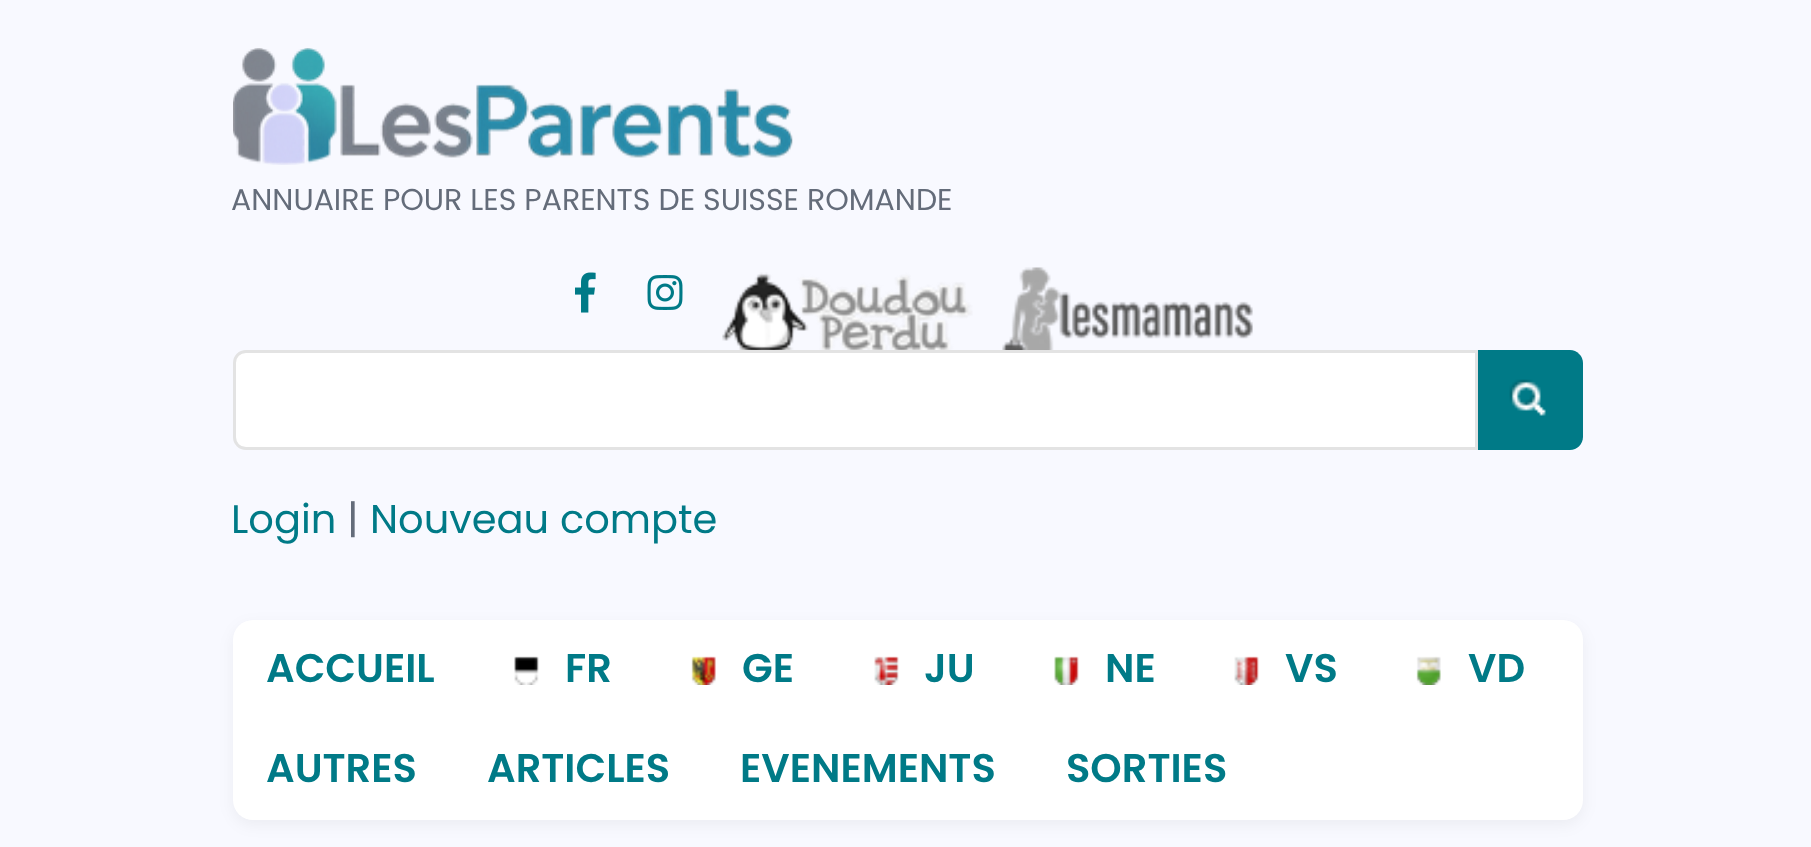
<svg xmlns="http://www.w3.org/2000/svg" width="1811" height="847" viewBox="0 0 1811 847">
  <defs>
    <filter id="blur1" x="-50%" y="-200%" width="200%" height="500%"><feGaussianBlur stdDeviation="7.5"/></filter>
  </defs>
  <rect width="100%" height="100%" fill="#f8f9ff"/>
  <image x="233" y="48" width="560" height="117" href="img1.png"/>
  <text x="231" y="210" font-family="Poppins" font-size="30" fill="#646c7a">ANNUAIRE POUR LES PARENTS DE SUISSE ROMANDE</text>
  <image x="575" y="272" width="21" height="41" href="img2.png"/>
  <image x="647" y="275" width="36" height="35" href="img3.png"/>
  <image x="722" y="272" width="251" height="78" href="img4.png"/>
  <image x="1002" y="267" width="251" height="83" href="img5.png"/>
  <path d="M246 351.5H1476.5V448.5H246C239.5 448.5 234.5 443.5 234.5 437V363C234.5 356.5 239.5 351.5 246 351.5Z" fill="#ffffff" stroke="#e3e3e3" stroke-width="3"/>
  <path d="M1478 350H1570C1577 350 1583 356 1583 363V437C1583 444 1577 450 1570 450H1478Z" fill="#007a87"/>
  <image x="1509" y="379" width="37" height="37" href="img6.png"/>
  <text x="231" y="533" font-family="Poppins" font-size="40" fill="#007a87">Login</text>
  <text x="347" y="533" font-family="Poppins" font-size="40" fill="#646c7a">|</text>
  <text x="370" y="533" font-family="Poppins" font-size="40" fill="#007a87">Nouveau compte</text>
  <rect x="233" y="625" width="1350" height="200" rx="20" fill="#000000" fill-opacity="0.05" filter="url(#blur1)"/>
  <rect x="233" y="620" width="1350" height="200" rx="20" fill="#ffffff"/>
  <text x="266" y="682" font-family="Poppins" font-size="40" font-weight="600" fill="#007a87">ACCUEIL</text>
  <image x="514" y="656" width="25" height="29" href="img7.png"/>
  <text x="565" y="682" font-family="Poppins" font-size="40" font-weight="600" fill="#007a87">FR</text>
  <image x="691" y="656" width="25" height="29" href="img8.png"/>
  <text x="742" y="682" font-family="Poppins" font-size="40" font-weight="600" fill="#007a87">GE</text>
  <image x="874" y="656" width="25" height="29" href="img9.png"/>
  <text x="924" y="682" font-family="Poppins" font-size="40" font-weight="600" fill="#007a87">JU</text>
  <image x="1054" y="656" width="25" height="29" href="img10.png"/>
  <text x="1105" y="682" font-family="Poppins" font-size="40" font-weight="600" fill="#007a87">NE</text>
  <image x="1234" y="656" width="25" height="29" href="img11.png"/>
  <text x="1285" y="682" font-family="Poppins" font-size="40" font-weight="600" fill="#007a87">VS</text>
  <image x="1416" y="656" width="25" height="29" href="img12.png"/>
  <text x="1468" y="682" font-family="Poppins" font-size="40" font-weight="600" fill="#007a87">VD</text>
  <text x="266" y="782" font-family="Poppins" font-size="40" font-weight="600" fill="#007a87">AUTRES</text>
  <text x="487" y="782" font-family="Poppins" font-size="40" font-weight="600" fill="#007a87">ARTICLES</text>
  <text x="740" y="782" font-family="Poppins" font-size="40" font-weight="600" fill="#007a87">EVENEMENTS</text>
  <text x="1066" y="782" font-family="Poppins" font-size="40" font-weight="600" fill="#007a87">SORTIES</text>
</svg>
